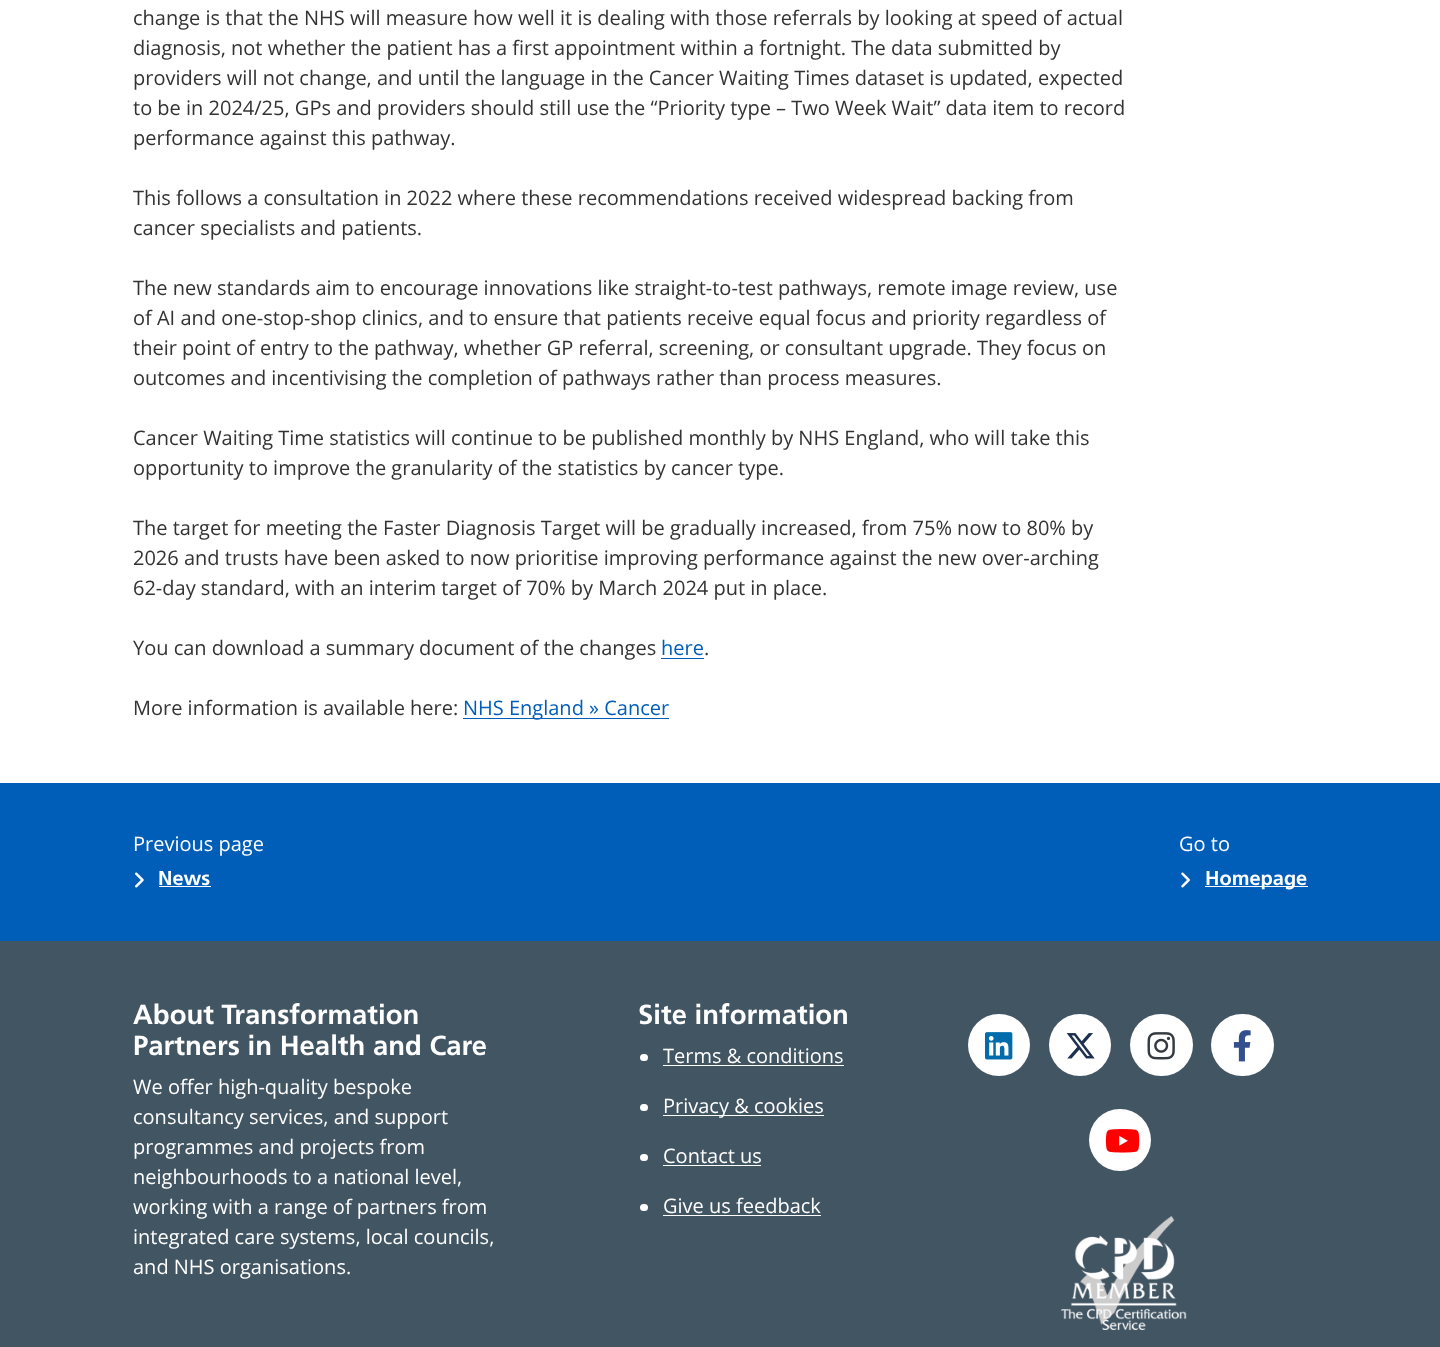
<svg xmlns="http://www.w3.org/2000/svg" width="1440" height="1347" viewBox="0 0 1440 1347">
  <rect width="100%" height="100%" fill="#425563"/>
  <rect x="0" y="0" width="1440" height="783" fill="#ffffff"/>
  <text x="133" y="25" font-family="Open Sans" font-size="20" fill="#333333">change is that the NHS will measure how well it is dealing with those referrals by looking at speed of actual</text>
  <text x="133" y="55" font-family="Open Sans" font-size="20" fill="#333333">diagnosis, not whether the patient has a first appointment within a fortnight. The data submitted by</text>
  <text x="133" y="85" font-family="Open Sans" font-size="20" fill="#333333">providers will not change, and until the language in the Cancer Waiting Times dataset is updated, expected</text>
  <text x="133" y="115" font-family="Open Sans" font-size="20" fill="#333333">to be in 2024/25, GPs and providers should still use the “Priority type – Two Week Wait” data item to record</text>
  <text x="133" y="145" font-family="Open Sans" font-size="20" fill="#333333">performance against this pathway.</text>
  <text x="133" y="205" font-family="Open Sans" font-size="20" fill="#333333">This follows a consultation in 2022 where these recommendations received widespread backing from</text>
  <text x="133" y="235" font-family="Open Sans" font-size="20" fill="#333333">cancer specialists and patients.</text>
  <text x="133" y="295" font-family="Open Sans" font-size="20" fill="#333333">The new standards aim to encourage innovations like straight-to-test pathways, remote image review, use</text>
  <text x="133" y="325" font-family="Open Sans" font-size="20" fill="#333333">of AI and one-stop-shop clinics, and to ensure that patients receive equal focus and priority regardless of</text>
  <text x="133" y="355" font-family="Open Sans" font-size="20" fill="#333333">their point of entry to the pathway, whether GP referral, screening, or consultant upgrade. They focus on</text>
  <text x="133" y="385" font-family="Open Sans" font-size="20" fill="#333333">outcomes and incentivising the completion of pathways rather than process measures.</text>
  <text x="133" y="445" font-family="Open Sans" font-size="20" fill="#333333">Cancer Waiting Time statistics will continue to be published monthly by NHS England, who will take this</text>
  <text x="133" y="475" font-family="Open Sans" font-size="20" fill="#333333">opportunity to improve the granularity of the statistics by cancer type.</text>
  <text x="133" y="535" font-family="Open Sans" font-size="20" fill="#333333">The target for meeting the Faster Diagnosis Target will be gradually increased, from 75% now to 80% by</text>
  <text x="133" y="565" font-family="Open Sans" font-size="20" fill="#333333">2026 and trusts have been asked to now prioritise improving performance against the new over-arching</text>
  <text x="133" y="595" font-family="Open Sans" font-size="20" fill="#333333">62-day standard, with an interim target of 70% by March 2024 put in place.</text>
  <text x="133" y="655" font-family="Open Sans" font-size="20" fill="#333333">You can download a summary document of the changes</text>
  <text x="661" y="655" font-family="Open Sans" font-size="20" fill="#005eb8">here</text>
  <rect x="661" y="658" width="43" height="1" fill="#005eb8"/>
  <text x="704" y="655" font-family="Open Sans" font-size="20" fill="#333333">.</text>
  <text x="133" y="715" font-family="Open Sans" font-size="20" fill="#333333">More information is available here:</text>
  <rect x="463" y="718" width="206" height="1" fill="#005eb8"/>
  <text x="463" y="715" font-family="Open Sans" font-size="20" fill="#005eb8">NHS England » Cancer</text>
  <rect x="0" y="783" width="1440" height="158" fill="#005eb8"/>
  <text x="133" y="851" font-family="Open Sans" font-size="20" fill="#ffffff">Previous page</text>
  <image x="135" y="872" width="9" height="16" href="img1.png"/>
  <text x="158" y="885" font-family="Frutiger" font-size="20" font-weight="bold" fill="#ffffff">News</text>
  <rect x="159" y="886" width="52" height="1" fill="#ffffff"/>
  <text x="1179" y="851" font-family="Open Sans" font-size="20" fill="#ffffff">Go to</text>
  <image x="1181" y="872" width="9" height="16" href="img2.png"/>
  <rect x="1205" y="886" width="103" height="1" fill="#ffffff"/>
  <text x="1205" y="885" font-family="Frutiger" font-size="20" font-weight="bold" fill="#ffffff">Homepage</text>
  <text x="133" y="1024" font-family="Frutiger" font-size="27.5" font-weight="bold" fill="#ffffff">About Transformation</text>
  <text x="133" y="1055" font-family="Frutiger" font-size="27.5" font-weight="bold" fill="#ffffff">Partners in Health and Care</text>
  <text x="133" y="1094" font-family="Open Sans" font-size="20" fill="#ffffff">We offer high-quality bespoke</text>
  <text x="133" y="1124" font-family="Open Sans" font-size="20" fill="#ffffff">consultancy services, and support</text>
  <text x="133" y="1154" font-family="Open Sans" font-size="20" fill="#ffffff">programmes and projects from</text>
  <text x="133" y="1184" font-family="Open Sans" font-size="20" fill="#ffffff">neighbourhoods to a national level,</text>
  <text x="133" y="1214" font-family="Open Sans" font-size="20" fill="#ffffff">working with a range of partners from</text>
  <text x="133" y="1244" font-family="Open Sans" font-size="20" fill="#ffffff">integrated care systems, local councils,</text>
  <text x="133" y="1274" font-family="Open Sans" font-size="20" fill="#ffffff">and NHS organisations.</text>
  <text x="638" y="1024" font-family="Frutiger" font-size="27.5" font-weight="bold" fill="#ffffff">Site information</text>
  <rect x="640" y="1054" width="8" height="7" rx="3.5" fill="#ffffff"/>
  <text x="663" y="1063" font-family="Open Sans" font-size="20" fill="#ffffff">Terms &amp; conditions</text>
  <rect x="663" y="1065" width="181" height="1" fill="#ffffff"/>
  <rect x="640" y="1104" width="8" height="7" rx="3.5" fill="#ffffff"/>
  <rect x="663" y="1115" width="161" height="1" fill="#ffffff"/>
  <text x="663" y="1113" font-family="Open Sans" font-size="20" fill="#ffffff">Privacy &amp; cookies</text>
  <rect x="640" y="1154" width="8" height="7" rx="3.5" fill="#ffffff"/>
  <text x="663" y="1163" font-family="Open Sans" font-size="20" fill="#ffffff">Contact us</text>
  <rect x="663" y="1165" width="98" height="1" fill="#ffffff"/>
  <rect x="640" y="1204" width="8" height="7" rx="3.5" fill="#ffffff"/>
  <text x="663" y="1213" font-family="Open Sans" font-size="20" fill="#ffffff">Give us feedback</text>
  <rect x="663" y="1215" width="158" height="1" fill="#ffffff"/>
  <circle cx="999" cy="1045" r="31" fill="#ffffff"/>
  <image x="985" y="1032" width="28" height="28" href="img3.png"/>
  <circle cx="1080" cy="1045" r="31" fill="#ffffff"/>
  <image x="1066" y="1033" width="29" height="26" href="img4.png"/>
  <rect x="1130" y="1014" width="63" height="62" rx="31" fill="#ffffff"/>
  <image x="1147" y="1032" width="28" height="28" href="img5.png"/>
  <rect x="1211" y="1014" width="63" height="62" rx="31" fill="#ffffff"/>
  <image x="1233" y="1030" width="18" height="32" href="img6.png"/>
  <circle cx="1120" cy="1140" r="31" fill="#ffffff"/>
  <image x="1105" y="1129" width="35" height="24" href="img7.png"/>
  <image x="1061" y="1216" width="126" height="114" href="img8.png"/>
</svg>
